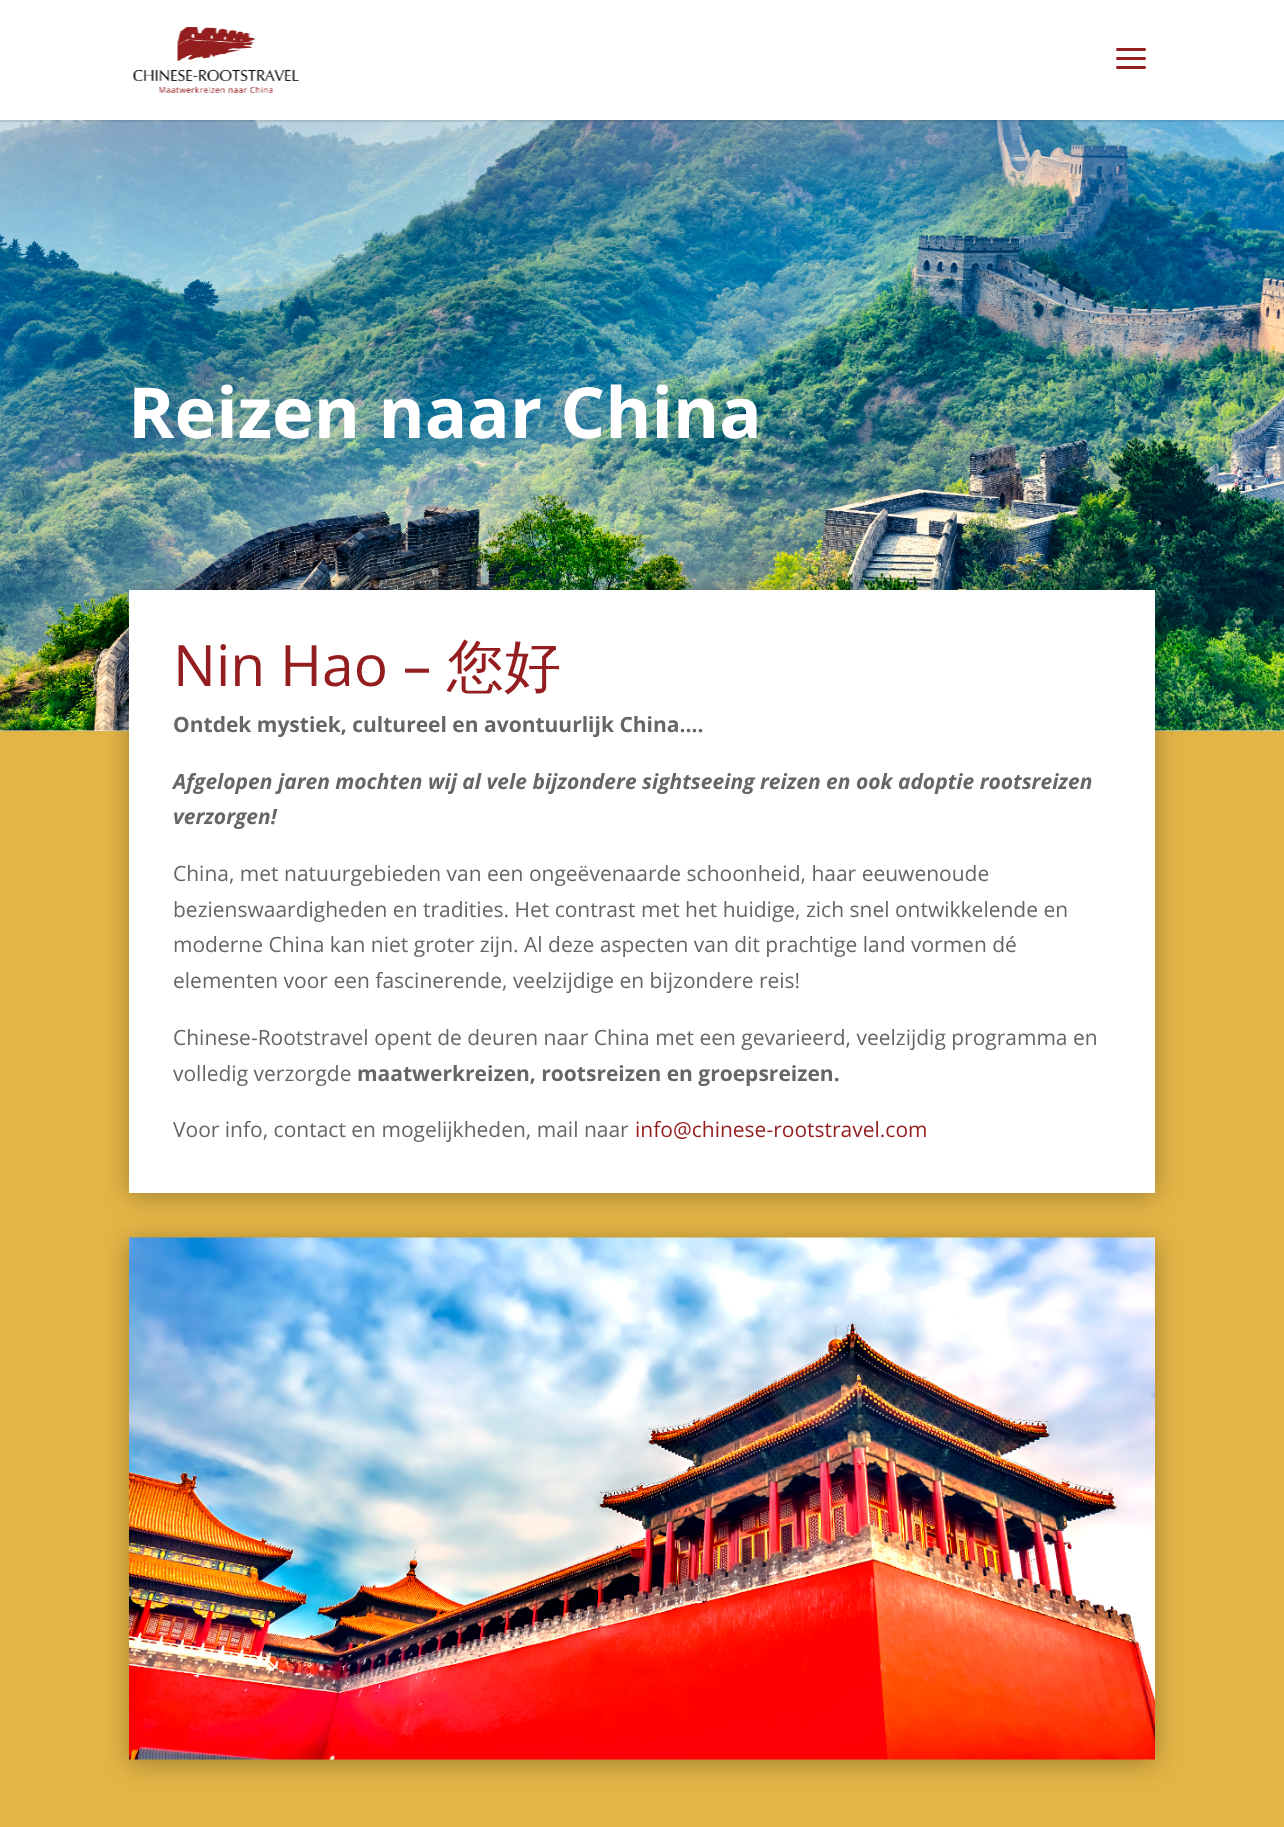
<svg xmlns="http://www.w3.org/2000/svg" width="1284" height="1827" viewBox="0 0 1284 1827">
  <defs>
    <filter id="blur1" x="-50%" y="-200%" width="200%" height="500%"><feGaussianBlur stdDeviation="13.5"/></filter>
  </defs>
  <rect width="100%" height="100%" fill="#ffffff"/>
  <image x="0" y="120" width="1284" height="611" href="img3.png"/>
  <rect x="0" y="120" width="1284" height="2" fill="#000000" fill-opacity="0.1"/>
  <image x="133" y="27" width="166" height="66" href="img1.png"/>
  <image x="1116" y="48" width="30" height="21" href="img2.png"/>
  <text x="128" y="438" font-family="Open Sans" font-size="70.5" font-weight="bold" fill="#ffffff">Reizen naar China</text>
  <rect x="0" y="731" width="1284" height="1096" fill="#e3b546"/>
  <rect x="129" y="593" width="1026" height="603" fill="#000000" fill-opacity="0.3" filter="url(#blur1)"/>
  <rect x="129" y="590" width="1026" height="603" fill="#ffffff"/>
  <text x="173" y="686" font-family="Open Sans" font-size="57" fill="#941e1f">Nin Hao –</text>
  <text x="447" y="686" font-family="WenQuanYi Zen Hei" font-size="57" font-weight="500" fill="#941e1f">您好</text>
  <text x="173" y="732" font-family="Open Sans" font-size="21" font-weight="bold" fill="#666666">Ontdek mystiek, cultureel en avontuurlijk China….</text>
  <text x="173" y="789" font-family="Open Sans" font-size="21" font-weight="bold" font-style="italic" fill="#666666">Afgelopen jaren mochten wij al vele bijzondere sightseeing reizen en ook adoptie rootsreizen</text>
  <text x="173" y="824" font-family="Open Sans" font-size="21" font-weight="bold" font-style="italic" fill="#666666">verzorgen!</text>
  <text x="173" y="881" font-family="Open Sans" font-size="21" fill="#666666">China, met natuurgebieden van een ongeëvenaarde schoonheid, haar eeuwenoude</text>
  <text x="173" y="917" font-family="Open Sans" font-size="21" fill="#666666">bezienswaardigheden en tradities. Het contrast met het huidige, zich snel ontwikkelende en</text>
  <text x="173" y="952" font-family="Open Sans" font-size="21" fill="#666666">moderne China kan niet groter zijn. Al deze aspecten van dit prachtige land vormen dé</text>
  <text x="173" y="988" font-family="Open Sans" font-size="21" fill="#666666">elementen voor een fascinerende, veelzijdige en bijzondere reis!</text>
  <text x="173" y="1045" font-family="Open Sans" font-size="21" fill="#666666">Chinese-Rootstravel opent de deuren naar China met een gevarieerd, veelzijdig programma en</text>
  <text x="173" y="1081" font-family="Open Sans" font-size="21" fill="#666666">volledig verzorgde</text>
  <text x="357" y="1081" font-family="Open Sans" font-size="21" font-weight="bold" fill="#666666">maatwerkreizen, rootsreizen en groepsreizen.</text>
  <text x="173" y="1137" font-family="Open Sans" font-size="21" fill="#666666">Voor info, contact en mogelijkheden, mail naar</text>
  <text x="635" y="1137" font-family="Open Sans" font-size="21" fill="#941e1f">info@chinese-rootstravel.com</text>
  <rect x="129" y="1241" width="1026" height="522" fill="#000000" fill-opacity="0.3" filter="url(#blur1)"/>
  <image x="129" y="1237" width="1026" height="523" href="img4.png"/>
</svg>
